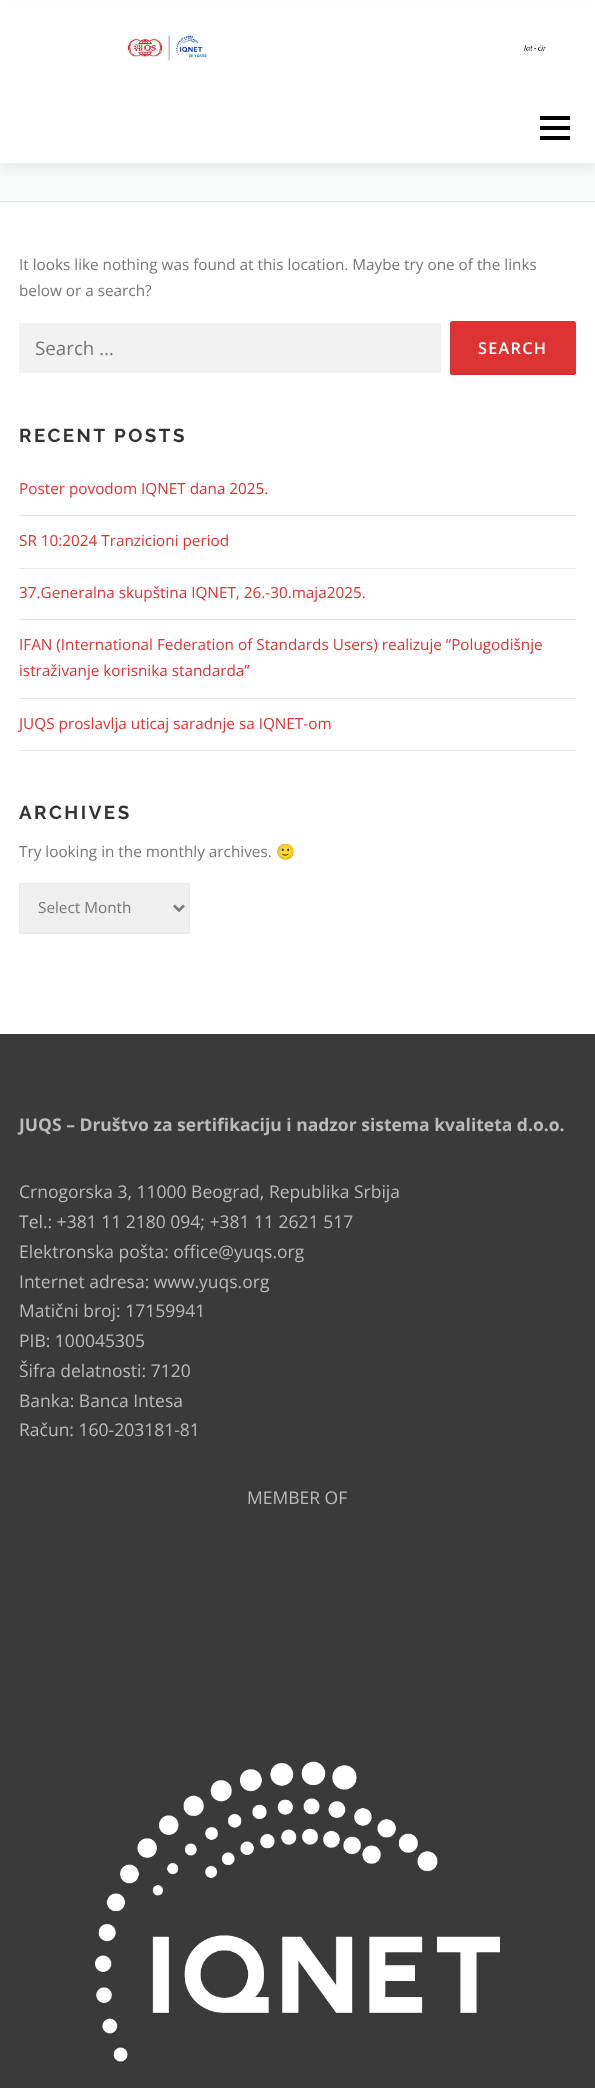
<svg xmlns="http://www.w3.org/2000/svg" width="595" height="2088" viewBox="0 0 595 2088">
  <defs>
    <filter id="blur1" x="-50%" y="-200%" width="200%" height="500%"><feGaussianBlur stdDeviation="6"/></filter>
  </defs>
  <rect width="100%" height="100%" fill="#ffffff"/>
  <rect x="0" y="163" width="595" height="40" fill="#f8f9f9"/>
  <rect x="0" y="6" width="595" height="163" fill="#323232" fill-opacity="0.06" filter="url(#blur1)"/>
  <rect x="0" y="1" width="595" height="162" fill="#ffffff"/>
  <image x="126" y="33" width="421" height="30" href="img1.png"/>
  <rect x="540" y="126" width="30" height="4" fill="#000000"/>
  <rect x="540" y="116" width="30" height="4" fill="#000000"/>
  <rect x="540" y="136" width="30" height="4" fill="#000000"/>
  <rect x="0" y="201" width="595" height="1" fill="#e9e9e9"/>
  <text x="19" y="270" font-family="Open Sans" font-size="15.3" fill="#777777">It looks like nothing was found at this location. Maybe try one of the links</text>
  <text x="19" y="296" font-family="Open Sans" font-size="15.3" fill="#777777">below or a search?</text>
  <rect x="19" y="323" width="422" height="50" fill="#f2f2f2"/>
  <text x="35" y="355" font-family="Open Sans" font-size="18.75" fill="#777777">Search …</text>
  <rect x="450" y="321" width="126" height="54" rx="2.5" fill="#dd3333"/>
  <path d="M450 371V372C450 374 451 375 452 375H574C575 375 576 374 576 372V371C576 373 575 374 574 374H452C451 374 450 373 450 371Z" fill="#000000" fill-opacity="0.1"/>
  <text x="478" y="354" font-family="Open Sans" font-size="16.25" font-weight="600" letter-spacing="1.25" fill="#ffffff">SEARCH</text>
  <text x="19" y="442" font-family="Raleway" font-size="18.75" font-weight="bold" letter-spacing="2.5" fill="#333333">RECENT POSTS</text>
  <rect x="19" y="515" width="557" height="1" fill="#e9e9e9"/>
  <text x="19" y="494" font-family="Open Sans" font-size="15.3" fill="#dd3333">Poster povodom IQNET dana 2025.</text>
  <rect x="19" y="568" width="557" height="1" fill="#e9e9e9"/>
  <text x="19" y="546" font-family="Open Sans" font-size="15.3" fill="#dd3333">SR 10:2024 Tranzicioni period</text>
  <rect x="19" y="619" width="557" height="1" fill="#e9e9e9"/>
  <text x="19" y="598" font-family="Open Sans" font-size="15.3" fill="#dd3333">37.Generalna skupština IQNET, 26.-30.maja2025.</text>
  <rect x="19" y="698" width="557" height="1" fill="#e9e9e9"/>
  <text x="19" y="650" font-family="Open Sans" font-size="15.3" fill="#dd3333">IFAN (International Federation of Standards Users) realizuje “Polugodišnje</text>
  <text x="19" y="676" font-family="Open Sans" font-size="15.3" fill="#dd3333">istraživanje korisnika standarda”</text>
  <rect x="19" y="750" width="557" height="1" fill="#e9e9e9"/>
  <text x="19" y="729" font-family="Open Sans" font-size="15.3" fill="#dd3333">JUQS proslavlja uticaj saradnje sa IQNET-om</text>
  <text x="19" y="819" font-family="Raleway" font-size="18.75" font-weight="bold" letter-spacing="2.5" fill="#333333">ARCHIVES</text>
  <text x="19" y="857" font-family="Open Sans" font-size="15.3" fill="#777777">Try looking in the monthly archives.</text>
  <text x="276" y="857" font-family="Noto Color Emoji" font-size="15.3" fill="#777777">🙂</text>
  <rect x="19.5" y="883.5" width="170" height="50" fill="#efefef" stroke="#e9e9e9"/>
  <path d="M174 905.5L179 910.5L184 905.5" fill="none" stroke="#777777" stroke-width="2.5"/>
  <text x="38" y="913" font-family="Open Sans" font-size="15.3" fill="#777777">Select Month</text>
  <rect x="0" y="1034" width="595" height="1054" fill="#3a3a3a"/>
  <text x="19" y="1131" font-family="Open Sans" font-size="17.5" font-weight="bold" fill="#bbbbbb">JUQS – Društvo za sertifikaciju i nadzor sistema kvaliteta d.o.o.</text>
  <text x="19" y="1198" font-family="Open Sans" font-size="17.5" fill="#bbbbbb">Crnogorska 3, 11000 Beograd, Republika Srbija</text>
  <text x="19" y="1228" font-family="Open Sans" font-size="17.5" fill="#bbbbbb">Tel.: +381 11 2180 094; +381 11 2621 517</text>
  <text x="19" y="1258" font-family="Open Sans" font-size="17.5" fill="#bbbbbb">Elektronska pošta: office@yuqs.org</text>
  <text x="19" y="1288" font-family="Open Sans" font-size="17.5" fill="#bbbbbb">Internet adresa: www.yuqs.org</text>
  <text x="19" y="1317" font-family="Open Sans" font-size="17.5" fill="#bbbbbb">Matični broj: 17159941</text>
  <text x="19" y="1347" font-family="Open Sans" font-size="17.5" fill="#bbbbbb">PIB: 100045305</text>
  <text x="19" y="1377" font-family="Open Sans" font-size="17.5" fill="#bbbbbb">Šifra delatnosti: 7120</text>
  <text x="19" y="1407" font-family="Open Sans" font-size="17.5" fill="#bbbbbb">Banka: Banca Intesa</text>
  <text x="19" y="1436" font-family="Open Sans" font-size="17.5" fill="#bbbbbb">Račun: 160-203181-81</text>
  <text x="247" y="1504" font-family="Open Sans" font-size="17.5" fill="#bbbbbb">MEMBER OF</text>
  <image x="95" y="1761" width="405" height="301" href="img2.png"/>
</svg>
